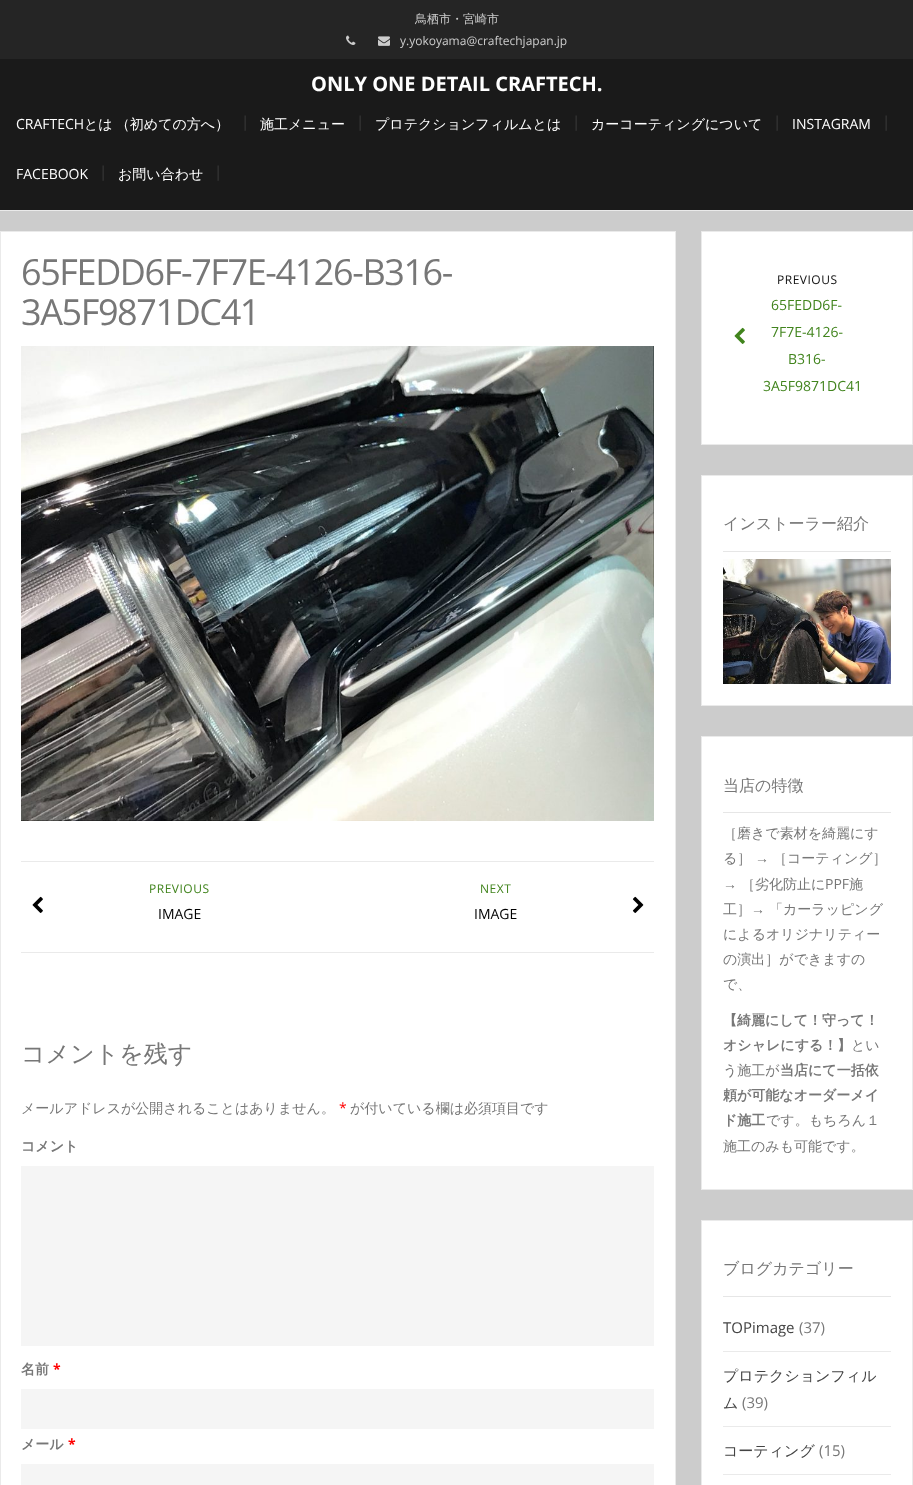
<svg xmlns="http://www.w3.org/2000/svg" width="913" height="1485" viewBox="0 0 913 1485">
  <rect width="100%" height="100%" fill="#cccccc"/>
  <rect x="0" y="0" width="913" height="59" fill="#252525"/>
  <text x="415" y="23" font-family="WenQuanYi Zen Hei" font-size="12" font-weight="500" fill="#cccccc">鳥栖市・宮崎市</text>
  <image x="346" y="35" width="10" height="10" href="img1.png"/>
  <image x="378" y="36" width="12" height="10" href="img2.png"/>
  <text x="400" y="45" font-family="Open Sans" font-size="12" fill="#cccccc">y.yokoyama@craftechjapan.jp</text>
  <rect x="0" y="59" width="913" height="151" fill="#1a1a1a"/>
  <rect x="0" y="210" width="913" height="1" fill="#eaeaea"/>
  <text x="311" y="91" font-family="Open Sans" font-size="20" font-weight="bold" fill="#ffffff">ONLY ONE DETAIL CRAFTECH.</text>
  <text x="16" y="129" font-family="Open Sans" font-size="14" fill="#ffffff">CRAFTECH</text>
  <text x="84" y="129" word-spacing="-1" font-family="WenQuanYi Zen Hei" font-size="14" font-weight="500" fill="#ffffff">とは （初めての方へ）</text>
  <text x="241" y="127" font-family="Open Sans" font-size="15" fill="#3c3c3c">|</text>
  <text x="260" y="129" font-family="WenQuanYi Zen Hei" font-size="14" font-weight="500" fill="#ffffff">施工メニュー</text>
  <text x="356" y="127" font-family="Open Sans" font-size="15" fill="#3c3c3c">|</text>
  <text x="375" y="129" font-family="WenQuanYi Zen Hei" font-size="14" font-weight="500" fill="#ffffff">プロテクションフィルムとは</text>
  <text x="572" y="127" font-family="Open Sans" font-size="15" fill="#3c3c3c">|</text>
  <text x="591" y="129" font-family="WenQuanYi Zen Hei" font-size="14" font-weight="500" fill="#ffffff">カーコーティングについて</text>
  <text x="773" y="127" font-family="Open Sans" font-size="15" fill="#3c3c3c">|</text>
  <text x="792" y="129" font-family="Open Sans" font-size="14" fill="#ffffff">INSTAGRAM</text>
  <text x="882" y="127" font-family="Open Sans" font-size="15" fill="#3c3c3c">|</text>
  <text x="16" y="179" font-family="Open Sans" font-size="14" fill="#ffffff">FACEBOOK</text>
  <text x="99" y="177" font-family="Open Sans" font-size="15" fill="#3c3c3c">|</text>
  <text x="118" y="179" font-family="WenQuanYi Zen Hei" font-size="14" font-weight="500" fill="#ffffff">お問い合わせ</text>
  <text x="214" y="177" font-family="Open Sans" font-size="15" fill="#3c3c3c">|</text>
  <rect x="0.5" y="231.5" width="675" height="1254" fill="none" stroke="#eaeaea"/>
  <rect x="1" y="232" width="674" height="1253" fill="#ffffff"/>
  <text x="21" y="285" font-family="Open Sans" font-size="36" letter-spacing="-1.4" fill="#777777">65FEDD6F-7F7E-4126-B316-</text>
  <text x="21" y="325" font-family="Open Sans" font-size="36" letter-spacing="-1.4" fill="#777777">3A5F9871DC41</text>
  <image x="21" y="346" width="633" height="475" href="img3.png"/>
  <rect x="21" y="861" width="633" height="1" fill="#eaeaea"/>
  <rect x="21" y="952" width="633" height="1" fill="#eaeaea"/>
  <text x="149" y="893" font-family="Open Sans" font-size="12" letter-spacing="0.5" fill="#41841d">PREVIOUS</text>
  <image x="32" y="896" width="11" height="17" href="img4.png"/>
  <text x="158" y="919" font-family="Open Sans" font-size="14" fill="#000000">IMAGE</text>
  <text x="480" y="893" font-family="Open Sans" font-size="12" letter-spacing="0.5" fill="#41841d">NEXT</text>
  <text x="474" y="919" font-family="Open Sans" font-size="14" fill="#000000">IMAGE</text>
  <image x="632" y="896" width="12" height="17" href="img5.png"/>
  <text x="21" y="1062" font-family="WenQuanYi Zen Hei" font-size="24" font-weight="500" fill="#777777">コメントを残す</text>
  <text x="21" y="1113" font-family="WenQuanYi Zen Hei" font-size="14" font-weight="500" fill="#777777">メールアドレスが公開されることはありません。</text>
  <text x="339" y="1113" font-family="Open Sans" font-size="14" fill="#ff0000">*</text>
  <text x="350" y="1113" font-family="WenQuanYi Zen Hei" font-size="14" font-weight="500" fill="#777777">が付いている欄は必須項目です</text>
  <text x="21" y="1151" font-family="WenQuanYi Zen Hei" font-size="14" font-weight="bold" fill="#777777">コメント</text>
  <rect x="21" y="1166" width="633" height="180" fill="#f5f5f5"/>
  <text x="21" y="1374" font-family="WenQuanYi Zen Hei" font-size="14" font-weight="bold" fill="#777777">名前</text>
  <text x="53" y="1374" font-family="Open Sans" font-size="14" font-weight="bold" fill="#ff0000">*</text>
  <rect x="21" y="1389" width="633" height="40" fill="#f5f5f5"/>
  <text x="21" y="1449" font-family="WenQuanYi Zen Hei" font-size="14" font-weight="bold" fill="#777777">メール</text>
  <text x="68" y="1449" font-family="Open Sans" font-size="14" font-weight="bold" fill="#ff0000">*</text>
  <rect x="21" y="1464" width="633" height="21" fill="#f5f5f5"/>
  <rect x="701.5" y="231.5" width="211" height="213" fill="#ffffff" stroke="#eaeaea"/>
  <text x="777" y="284" font-family="Open Sans" font-size="12" letter-spacing="0.5" fill="#111111">PREVIOUS</text>
  <text x="771" y="310" font-family="Open Sans" font-size="14" fill="#41841d">65FEDD6F-</text>
  <image x="734" y="327" width="11" height="17" href="img6.png"/>
  <text x="771" y="337" font-family="Open Sans" font-size="14" fill="#41841d">7F7E-4126-</text>
  <text x="788" y="364" font-family="Open Sans" font-size="14" fill="#41841d">B316-</text>
  <text x="763" y="391" font-family="Open Sans" font-size="14" fill="#41841d">3A5F9871DC41</text>
  <rect x="701.5" y="475.5" width="211" height="230" fill="#ffffff" stroke="#eaeaea"/>
  <rect x="723" y="551" width="168" height="1" fill="#e6e6e6"/>
  <text x="723" y="529" font-family="WenQuanYi Zen Hei" font-size="16" font-weight="500" fill="#777777">インストーラー紹介</text>
  <image x="723" y="559" width="168" height="125" href="img7.png"/>
  <rect x="701.5" y="736.5" width="211" height="453" fill="#ffffff" stroke="#eaeaea"/>
  <rect x="723" y="812" width="168" height="1" fill="#e6e6e6"/>
  <text x="723" y="791" font-family="WenQuanYi Zen Hei" font-size="16" font-weight="500" fill="#777777">当店の特徴</text>
  <text x="723" y="838" font-family="WenQuanYi Zen Hei" font-size="14" font-weight="500" fill="#777777">［磨きで素材を綺麗にす</text>
  <text x="723" y="863" font-family="WenQuanYi Zen Hei" font-size="14" font-weight="500" fill="#777777">る］</text>
  <text x="755" y="863" font-family="Liberation Serif" font-size="14" fill="#777777">→</text>
  <text x="773" y="863" font-family="WenQuanYi Zen Hei" font-size="14" font-weight="500" fill="#777777">［コーティング］</text>
  <text x="723" y="889" font-family="Liberation Serif" font-size="14" fill="#777777">→</text>
  <text x="741" y="889" font-family="WenQuanYi Zen Hei" font-size="14" font-weight="500" fill="#777777">［劣化防止に</text>
  <text x="825" y="889" font-family="Open Sans" font-size="14" fill="#777777">PPF</text>
  <text x="849" y="889" font-family="WenQuanYi Zen Hei" font-size="14" font-weight="500" fill="#777777">施</text>
  <text x="723" y="914" font-family="WenQuanYi Zen Hei" font-size="14" font-weight="500" fill="#777777">工］</text>
  <text x="751" y="914" font-family="Liberation Serif" font-size="14" fill="#777777">→</text>
  <text x="769" y="914" font-family="WenQuanYi Zen Hei" font-size="14" font-weight="500" fill="#777777">「カーラッピング</text>
  <text x="723" y="939" font-family="WenQuanYi Zen Hei" font-size="14" font-weight="500" fill="#777777">によるオリジナリティー</text>
  <text x="723" y="964" font-family="WenQuanYi Zen Hei" font-size="14" font-weight="500" fill="#777777">の演出］ができますの</text>
  <text x="723" y="989" font-family="WenQuanYi Zen Hei" font-size="14" font-weight="500" fill="#777777">で、</text>
  <text x="723" y="1025" font-family="WenQuanYi Zen Hei" font-size="14" font-weight="bold" fill="#777777">【綺麗にして！守って！</text>
  <text x="723" y="1050" font-family="WenQuanYi Zen Hei" font-size="14" font-weight="bold" fill="#777777">オシャレにする！】</text>
  <text x="851" y="1050" font-family="WenQuanYi Zen Hei" font-size="14" font-weight="500" fill="#777777">とい</text>
  <text x="723" y="1075" font-family="WenQuanYi Zen Hei" font-size="14" font-weight="500" fill="#777777">う施工が</text>
  <text x="780" y="1075" font-family="WenQuanYi Zen Hei" font-size="14" font-weight="bold" fill="#777777">当店にて一括依</text>
  <text x="723" y="1100" font-family="WenQuanYi Zen Hei" font-size="14" font-weight="bold" fill="#777777">頼が可能なオーダーメイ</text>
  <text x="723" y="1125" font-family="WenQuanYi Zen Hei" font-size="14" font-weight="bold" fill="#777777">ド施工</text>
  <text x="766" y="1125" font-family="WenQuanYi Zen Hei" font-size="14" font-weight="500" fill="#777777">です。もちろん１</text>
  <text x="723" y="1151" font-family="WenQuanYi Zen Hei" font-size="14" font-weight="500" fill="#777777">施工のみも可能です。</text>
  <rect x="701.5" y="1220.5" width="211" height="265" fill="#ffffff" stroke="#eaeaea"/>
  <rect x="723" y="1296" width="168" height="1" fill="#e6e6e6"/>
  <text x="723" y="1274" font-family="WenQuanYi Zen Hei" font-size="16" font-weight="500" fill="#777777">ブログカテゴリー</text>
  <rect x="723" y="1351" width="168" height="1" fill="#eaeaea"/>
  <text x="723" y="1333" font-family="Open Sans" font-size="15" fill="#444444">TOPimage</text>
  <text x="799" y="1333" font-family="Open Sans" font-size="15" fill="#777777">(37)</text>
  <rect x="723" y="1426" width="168" height="1" fill="#eaeaea"/>
  <text x="723" y="1381" font-family="WenQuanYi Zen Hei" font-size="15" font-weight="500" fill="#444444">プロテクションフィル</text>
  <text x="723" y="1408" font-family="WenQuanYi Zen Hei" font-size="15" font-weight="500" fill="#444444">ム</text>
  <text x="742" y="1408" font-family="Open Sans" font-size="15" fill="#777777">(39)</text>
  <rect x="723" y="1474" width="168" height="1" fill="#eaeaea"/>
  <text x="723" y="1456" font-family="WenQuanYi Zen Hei" font-size="15" font-weight="500" fill="#444444">コーティング</text>
  <text x="819" y="1456" font-family="Open Sans" font-size="15" fill="#777777">(15)</text>
</svg>
